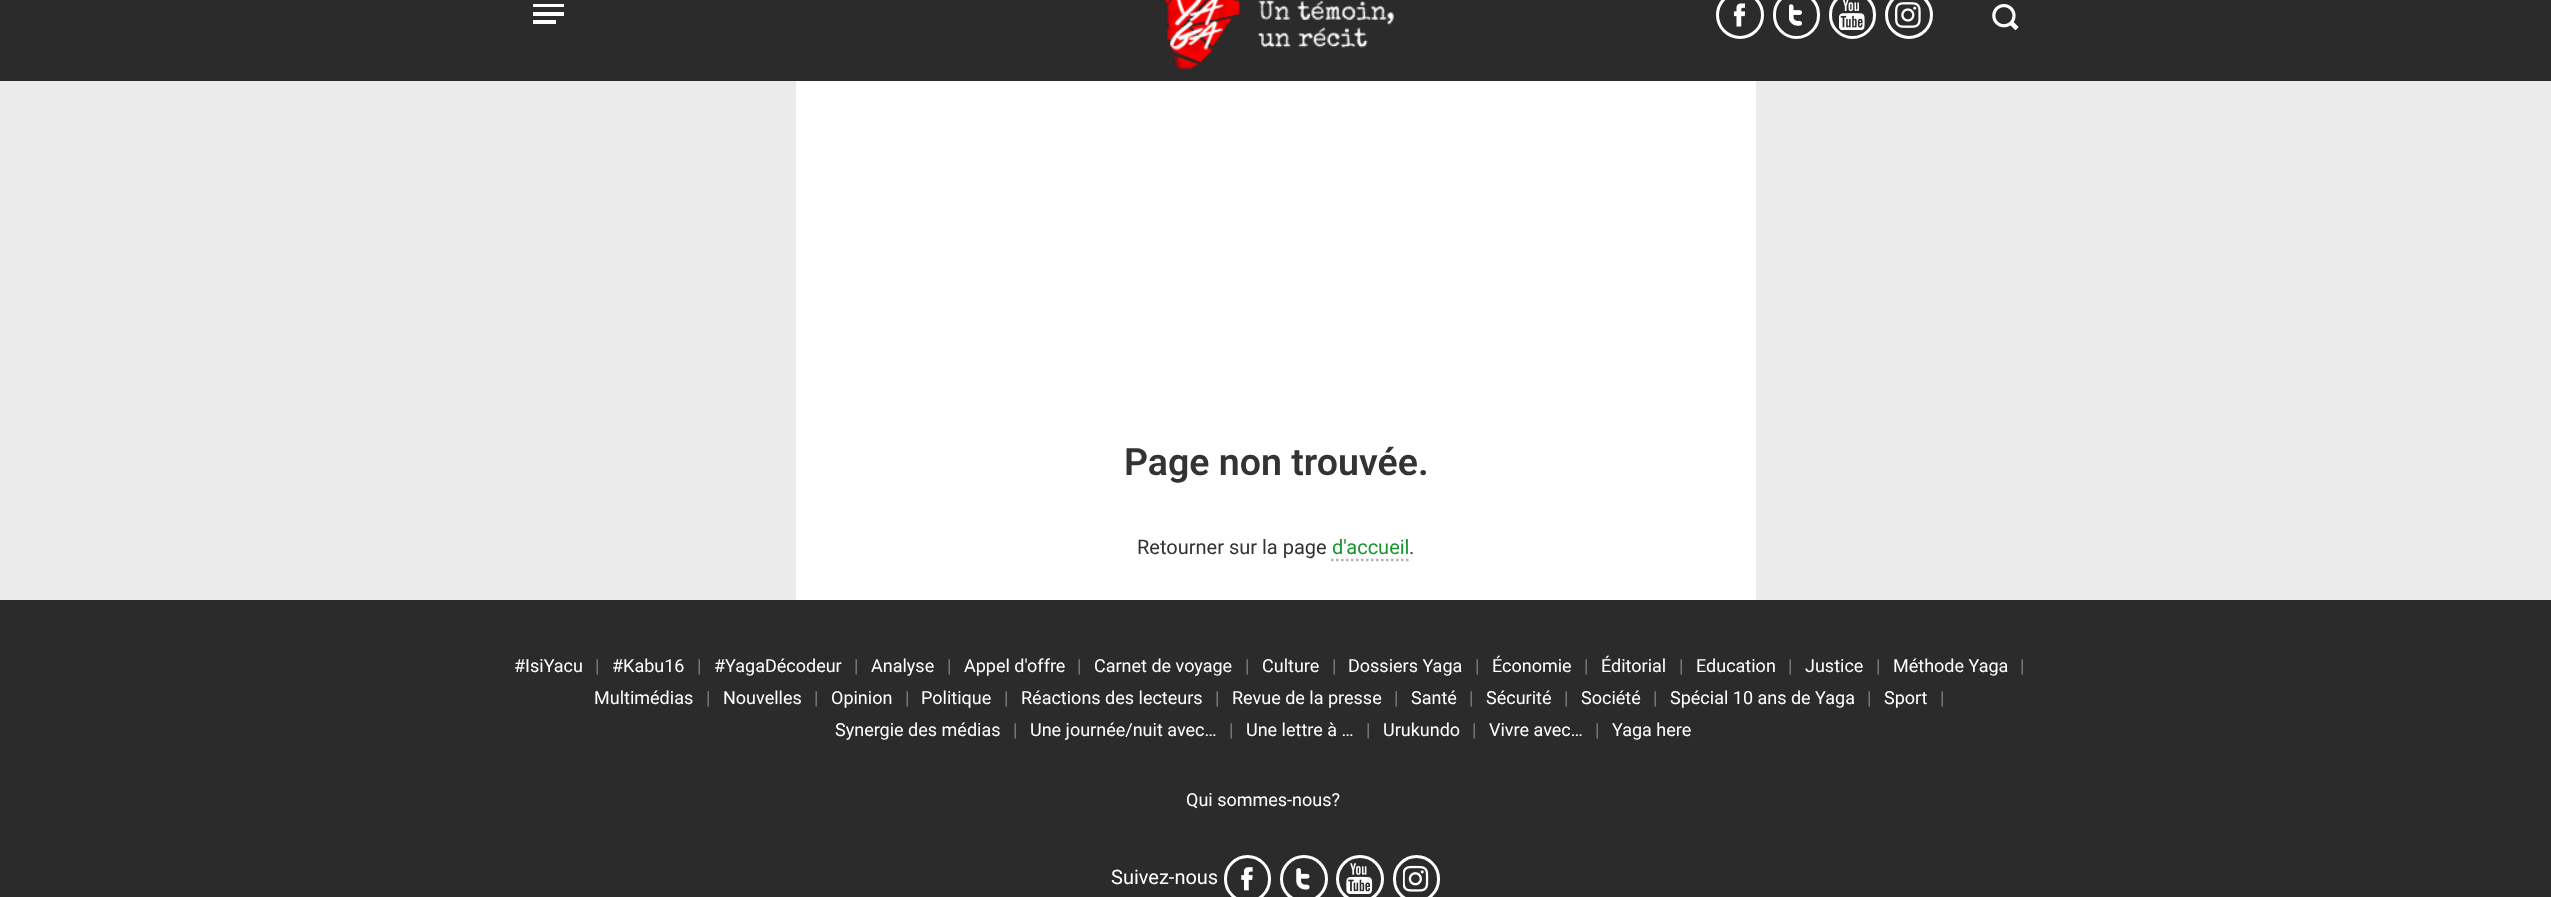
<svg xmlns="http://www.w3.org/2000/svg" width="2551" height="897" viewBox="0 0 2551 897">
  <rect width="100%" height="100%" fill="#ebebeb"/>
  <rect x="0" y="0" width="2551" height="81" fill="#2b2b2b"/>
  <rect x="533" y="4" width="31" height="3" fill="#ffffff"/>
  <rect x="533" y="12" width="31" height="4" fill="#ffffff"/>
  <rect x="533" y="20" width="23" height="4" fill="#ffffff"/>
  <image x="1164" y="0" width="230" height="69" href="img1.png"/>
  <circle cx="1740" cy="15" r="22.5" fill="none" stroke="#ffffff" stroke-width="3"/>
  <image x="1734" y="3" width="11" height="24" href="img2.png"/>
  <rect x="1774.5" y="-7.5" width="44" height="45" rx="22" fill="none" stroke="#ffffff" stroke-width="3"/>
  <image x="1789" y="4" width="13" height="22" href="img3.png"/>
  <rect x="1830.5" y="-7.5" width="44" height="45" rx="22" fill="none" stroke="#ffffff" stroke-width="3"/>
  <image x="1839" y="0" width="26" height="30" href="img4.png"/>
  <circle cx="1909" cy="15" r="22.5" fill="none" stroke="#ffffff" stroke-width="3"/>
  <image x="1895" y="2" width="26" height="26" href="img5.png"/>
  <image x="1992" y="4" width="27" height="26" href="img6.png"/>
  <rect x="796" y="81" width="960" height="519" fill="#ffffff"/>
  <text x="1124" y="475" font-family="Roboto" font-size="37.5" font-weight="600" fill="#333333">Page non trouvée.</text>
  <text x="1137" y="554" font-family="Roboto" font-size="20" fill="#333333">Retourner sur la page</text>
  <text x="1332" y="554" font-family="Roboto" font-size="20" fill="#199630">d'accueil</text>
  <path d="M1331 560H1409" fill="none" stroke="#b3b3b3" stroke-width="2.5" stroke-dasharray="2.5 2.5"/>
  <text x="1409" y="554" font-family="Roboto" font-size="20" fill="#333333">.</text>
  <rect x="0" y="600" width="2551" height="297" fill="#2b2b2b"/>
  <text x="514" y="672" font-family="Roboto" font-size="18" fill="#ffffff">#IsiYacu</text>
  <text x="595" y="672" font-family="Roboto" font-size="18" fill="#808080">|</text>
  <text x="612" y="672" font-family="Roboto" font-size="18" fill="#ffffff">#Kabu16</text>
  <text x="697" y="672" font-family="Roboto" font-size="18" fill="#808080">|</text>
  <text x="714" y="672" font-family="Roboto" font-size="18" fill="#ffffff">#YagaDécodeur</text>
  <text x="854" y="672" font-family="Roboto" font-size="18" fill="#808080">|</text>
  <text x="871" y="672" font-family="Roboto" font-size="18" fill="#ffffff">Analyse</text>
  <text x="947" y="672" font-family="Roboto" font-size="18" fill="#808080">|</text>
  <text x="964" y="672" font-family="Roboto" font-size="18" fill="#ffffff">Appel d'offre</text>
  <text x="1077" y="672" font-family="Roboto" font-size="18" fill="#808080">|</text>
  <text x="1094" y="672" font-family="Roboto" font-size="18" fill="#ffffff">Carnet de voyage</text>
  <text x="1245" y="672" font-family="Roboto" font-size="18" fill="#808080">|</text>
  <text x="1262" y="672" font-family="Roboto" font-size="18" fill="#ffffff">Culture</text>
  <text x="1332" y="672" font-family="Roboto" font-size="18" fill="#808080">|</text>
  <text x="1348" y="672" font-family="Roboto" font-size="18" fill="#ffffff">Dossiers Yaga</text>
  <text x="1475" y="672" font-family="Roboto" font-size="18" fill="#808080">|</text>
  <text x="1492" y="672" font-family="Roboto" font-size="18" fill="#ffffff">Économie</text>
  <text x="1584" y="672" font-family="Roboto" font-size="18" fill="#808080">|</text>
  <text x="1601" y="672" font-family="Roboto" font-size="18" fill="#ffffff">Éditorial</text>
  <text x="1679" y="672" font-family="Roboto" font-size="18" fill="#808080">|</text>
  <text x="1696" y="672" font-family="Roboto" font-size="18" fill="#ffffff">Education</text>
  <text x="1788" y="672" font-family="Roboto" font-size="18" fill="#808080">|</text>
  <text x="1805" y="672" font-family="Roboto" font-size="18" fill="#ffffff">Justice</text>
  <text x="1876" y="672" font-family="Roboto" font-size="18" fill="#808080">|</text>
  <text x="1893" y="672" font-family="Roboto" font-size="18" fill="#ffffff">Méthode Yaga</text>
  <text x="2020" y="672" font-family="Roboto" font-size="18" fill="#808080">|</text>
  <text x="594" y="704" font-family="Roboto" font-size="18" fill="#ffffff">Multimédias</text>
  <text x="706" y="704" font-family="Roboto" font-size="18" fill="#808080">|</text>
  <text x="723" y="704" font-family="Roboto" font-size="18" fill="#ffffff">Nouvelles</text>
  <text x="814" y="704" font-family="Roboto" font-size="18" fill="#808080">|</text>
  <text x="831" y="704" font-family="Roboto" font-size="18" fill="#ffffff">Opinion</text>
  <text x="905" y="704" font-family="Roboto" font-size="18" fill="#808080">|</text>
  <text x="921" y="704" font-family="Roboto" font-size="18" fill="#ffffff">Politique</text>
  <text x="1004" y="704" font-family="Roboto" font-size="18" fill="#808080">|</text>
  <text x="1021" y="704" font-family="Roboto" font-size="18" fill="#ffffff">Réactions des lecteurs</text>
  <text x="1215" y="704" font-family="Roboto" font-size="18" fill="#808080">|</text>
  <text x="1232" y="704" font-family="Roboto" font-size="18" fill="#ffffff">Revue de la presse</text>
  <text x="1394" y="704" font-family="Roboto" font-size="18" fill="#808080">|</text>
  <text x="1411" y="704" font-family="Roboto" font-size="18" fill="#ffffff">Santé</text>
  <text x="1469" y="704" font-family="Roboto" font-size="18" fill="#808080">|</text>
  <text x="1486" y="704" font-family="Roboto" font-size="18" fill="#ffffff">Sécurité</text>
  <text x="1564" y="704" font-family="Roboto" font-size="18" fill="#808080">|</text>
  <text x="1581" y="704" font-family="Roboto" font-size="18" fill="#ffffff">Société</text>
  <text x="1653" y="704" font-family="Roboto" font-size="18" fill="#808080">|</text>
  <text x="1670" y="704" font-family="Roboto" font-size="18" fill="#ffffff">Spécial 10 ans de Yaga</text>
  <text x="1867" y="704" font-family="Roboto" font-size="18" fill="#808080">|</text>
  <text x="1884" y="704" font-family="Roboto" font-size="18" fill="#ffffff">Sport</text>
  <text x="1940" y="704" font-family="Roboto" font-size="18" fill="#808080">|</text>
  <text x="835" y="736" font-family="Roboto" font-size="18" fill="#ffffff">Synergie des médias</text>
  <text x="1013" y="736" font-family="Roboto" font-size="18" fill="#808080">|</text>
  <text x="1030" y="736" font-family="Roboto" font-size="18" fill="#ffffff">Une journée/nuit avec…</text>
  <text x="1229" y="736" font-family="Roboto" font-size="18" fill="#808080">|</text>
  <text x="1246" y="736" font-family="Roboto" font-size="18" fill="#ffffff">Une lettre à …</text>
  <text x="1366" y="736" font-family="Roboto" font-size="18" fill="#808080">|</text>
  <text x="1383" y="736" font-family="Roboto" font-size="18" fill="#ffffff">Urukundo</text>
  <text x="1472" y="736" font-family="Roboto" font-size="18" fill="#808080">|</text>
  <text x="1489" y="736" font-family="Roboto" font-size="18" fill="#ffffff">Vivre avec…</text>
  <text x="1595" y="736" font-family="Roboto" font-size="18" fill="#808080">|</text>
  <text x="1612" y="736" font-family="Roboto" font-size="18" fill="#ffffff">Yaga here</text>
  <text x="1186" y="806" font-family="Roboto" font-size="18" fill="#ffffff">Qui sommes-nous?</text>
  <text x="1111" y="884" font-family="Roboto" font-size="20" fill="#ffffff">Suivez-nous</text>
  <rect x="1225.5" y="856.5" width="44" height="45" rx="22" fill="none" stroke="#ffffff" stroke-width="3"/>
  <image x="1241" y="867" width="12" height="24" href="img7.png"/>
  <circle cx="1304" cy="879" r="22.5" fill="none" stroke="#ffffff" stroke-width="3"/>
  <image x="1296" y="868" width="14" height="22" href="img8.png"/>
  <circle cx="1360" cy="879" r="22.5" fill="none" stroke="#ffffff" stroke-width="3"/>
  <image x="1346" y="863" width="27" height="31" href="img9.png"/>
  <rect x="1394.5" y="856.5" width="44" height="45" rx="22" fill="none" stroke="#ffffff" stroke-width="3"/>
  <image x="1403" y="865" width="26" height="27" href="img10.png"/>
</svg>
